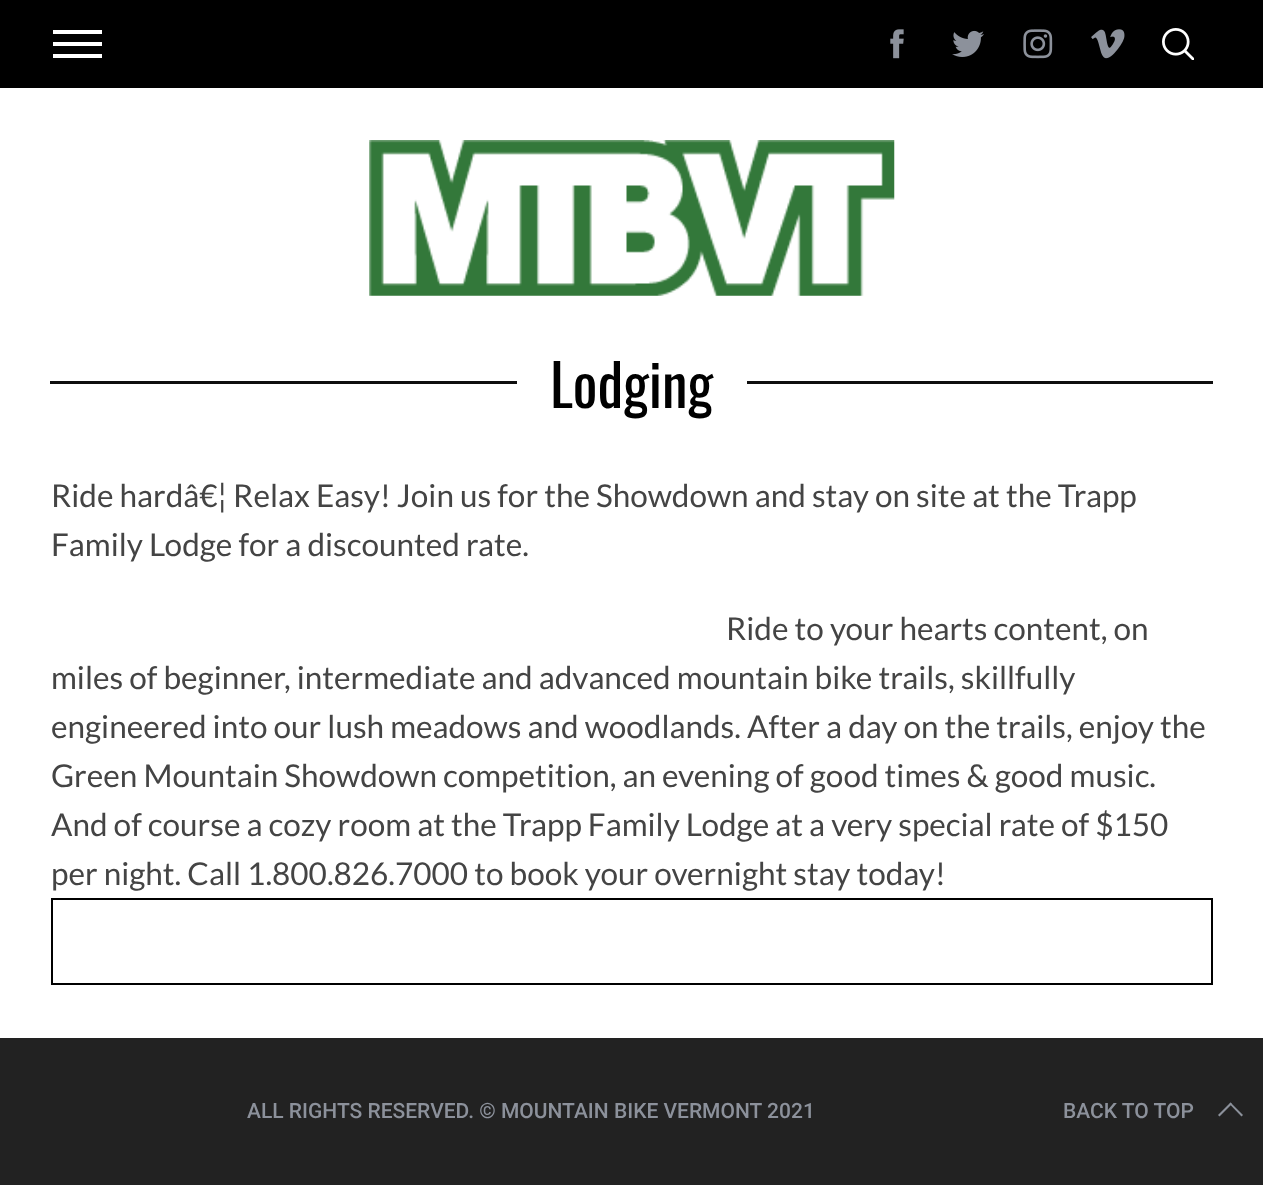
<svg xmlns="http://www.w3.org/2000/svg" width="1263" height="1202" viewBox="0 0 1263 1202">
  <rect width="100%" height="100%" fill="#ffffff"/>
  <rect x="0" y="0" width="1263" height="88" fill="#000000"/>
  <rect x="53" y="42" width="49" height="4" fill="#ffffff"/>
  <rect x="53" y="30" width="49" height="4" fill="#ffffff"/>
  <rect x="53" y="54" width="49" height="4" fill="#ffffff"/>
  <image x="890" y="29" width="14" height="30" href="img1.png"/>
  <image x="952" y="30" width="32" height="27" href="img2.png"/>
  <image x="1023" y="29" width="30" height="30" href="img3.png"/>
  <image x="1091" y="29" width="34" height="30" href="img4.png"/>
  <image x="1162" y="28" width="32" height="32" href="img5.png"/>
  <image x="369" y="140" width="526" height="156" href="img6.png"/>
  <rect x="50" y="381" width="467" height="3" fill="#0f0f0f"/>
  <text x="550" y="408" font-family="Oswald" font-size="58" fill="#000000">Lodging</text>
  <rect x="747" y="381" width="466" height="3" fill="#0f0f0f"/>
  <text x="51" y="507" font-family="Lato" font-size="31.5" fill="#444444">Ride hardâ€¦ Relax Easy! Join us for the Showdown and stay on site at the Trapp</text>
  <text x="51" y="556" font-family="Lato" font-size="31.5" fill="#444444">Family Lodge for a discounted rate.</text>
  <text x="726" y="640" font-family="Lato" font-size="31.5" fill="#444444">Ride to your hearts content, on</text>
  <text x="51" y="689" font-family="Lato" font-size="31.5" fill="#444444">miles of beginner, intermediate and advanced mountain bike trails, skillfully</text>
  <text x="51" y="738" font-family="Lato" font-size="31.5" fill="#444444">engineered into our lush meadows and woodlands. After a day on the trails, enjoy the</text>
  <text x="51" y="787" font-family="Lato" font-size="31.5" fill="#444444">Green Mountain Showdown competition, an evening of good times &amp; good music.</text>
  <text x="51" y="836" font-family="Lato" font-size="31.5" fill="#444444">And of course a cozy room at the Trapp Family Lodge at a very special rate of $150</text>
  <text x="51" y="885" font-family="Lato" font-size="31.5" fill="#444444">per night. Call 1.800.826.7000 to book your overnight stay today!</text>
  <rect x="52" y="899" width="1160" height="85" fill="none" stroke="#000000" stroke-width="2"/>
  <rect x="0" y="1038" width="1263" height="147" fill="#222222"/>
  <text x="247" y="1118" font-family="Roboto" font-size="21" font-weight="500" fill="#8c919b">ALL RIGHTS RESERVED. © MOUNTAIN BIKE VERMONT 2021</text>
  <text x="1063" y="1118" font-family="Roboto" font-size="21" font-weight="500" fill="#8c919b">BACK TO TOP</text>
  <path d="M1218 1115L1230.5 1102.5L1232 1104L1219.5 1116.5Z" fill="#8c919b"/>
  <path d="M1229.5 1104L1230.5 1102.5L1243 1115L1241.5 1116.5Z" fill="#8c919b"/>
</svg>
